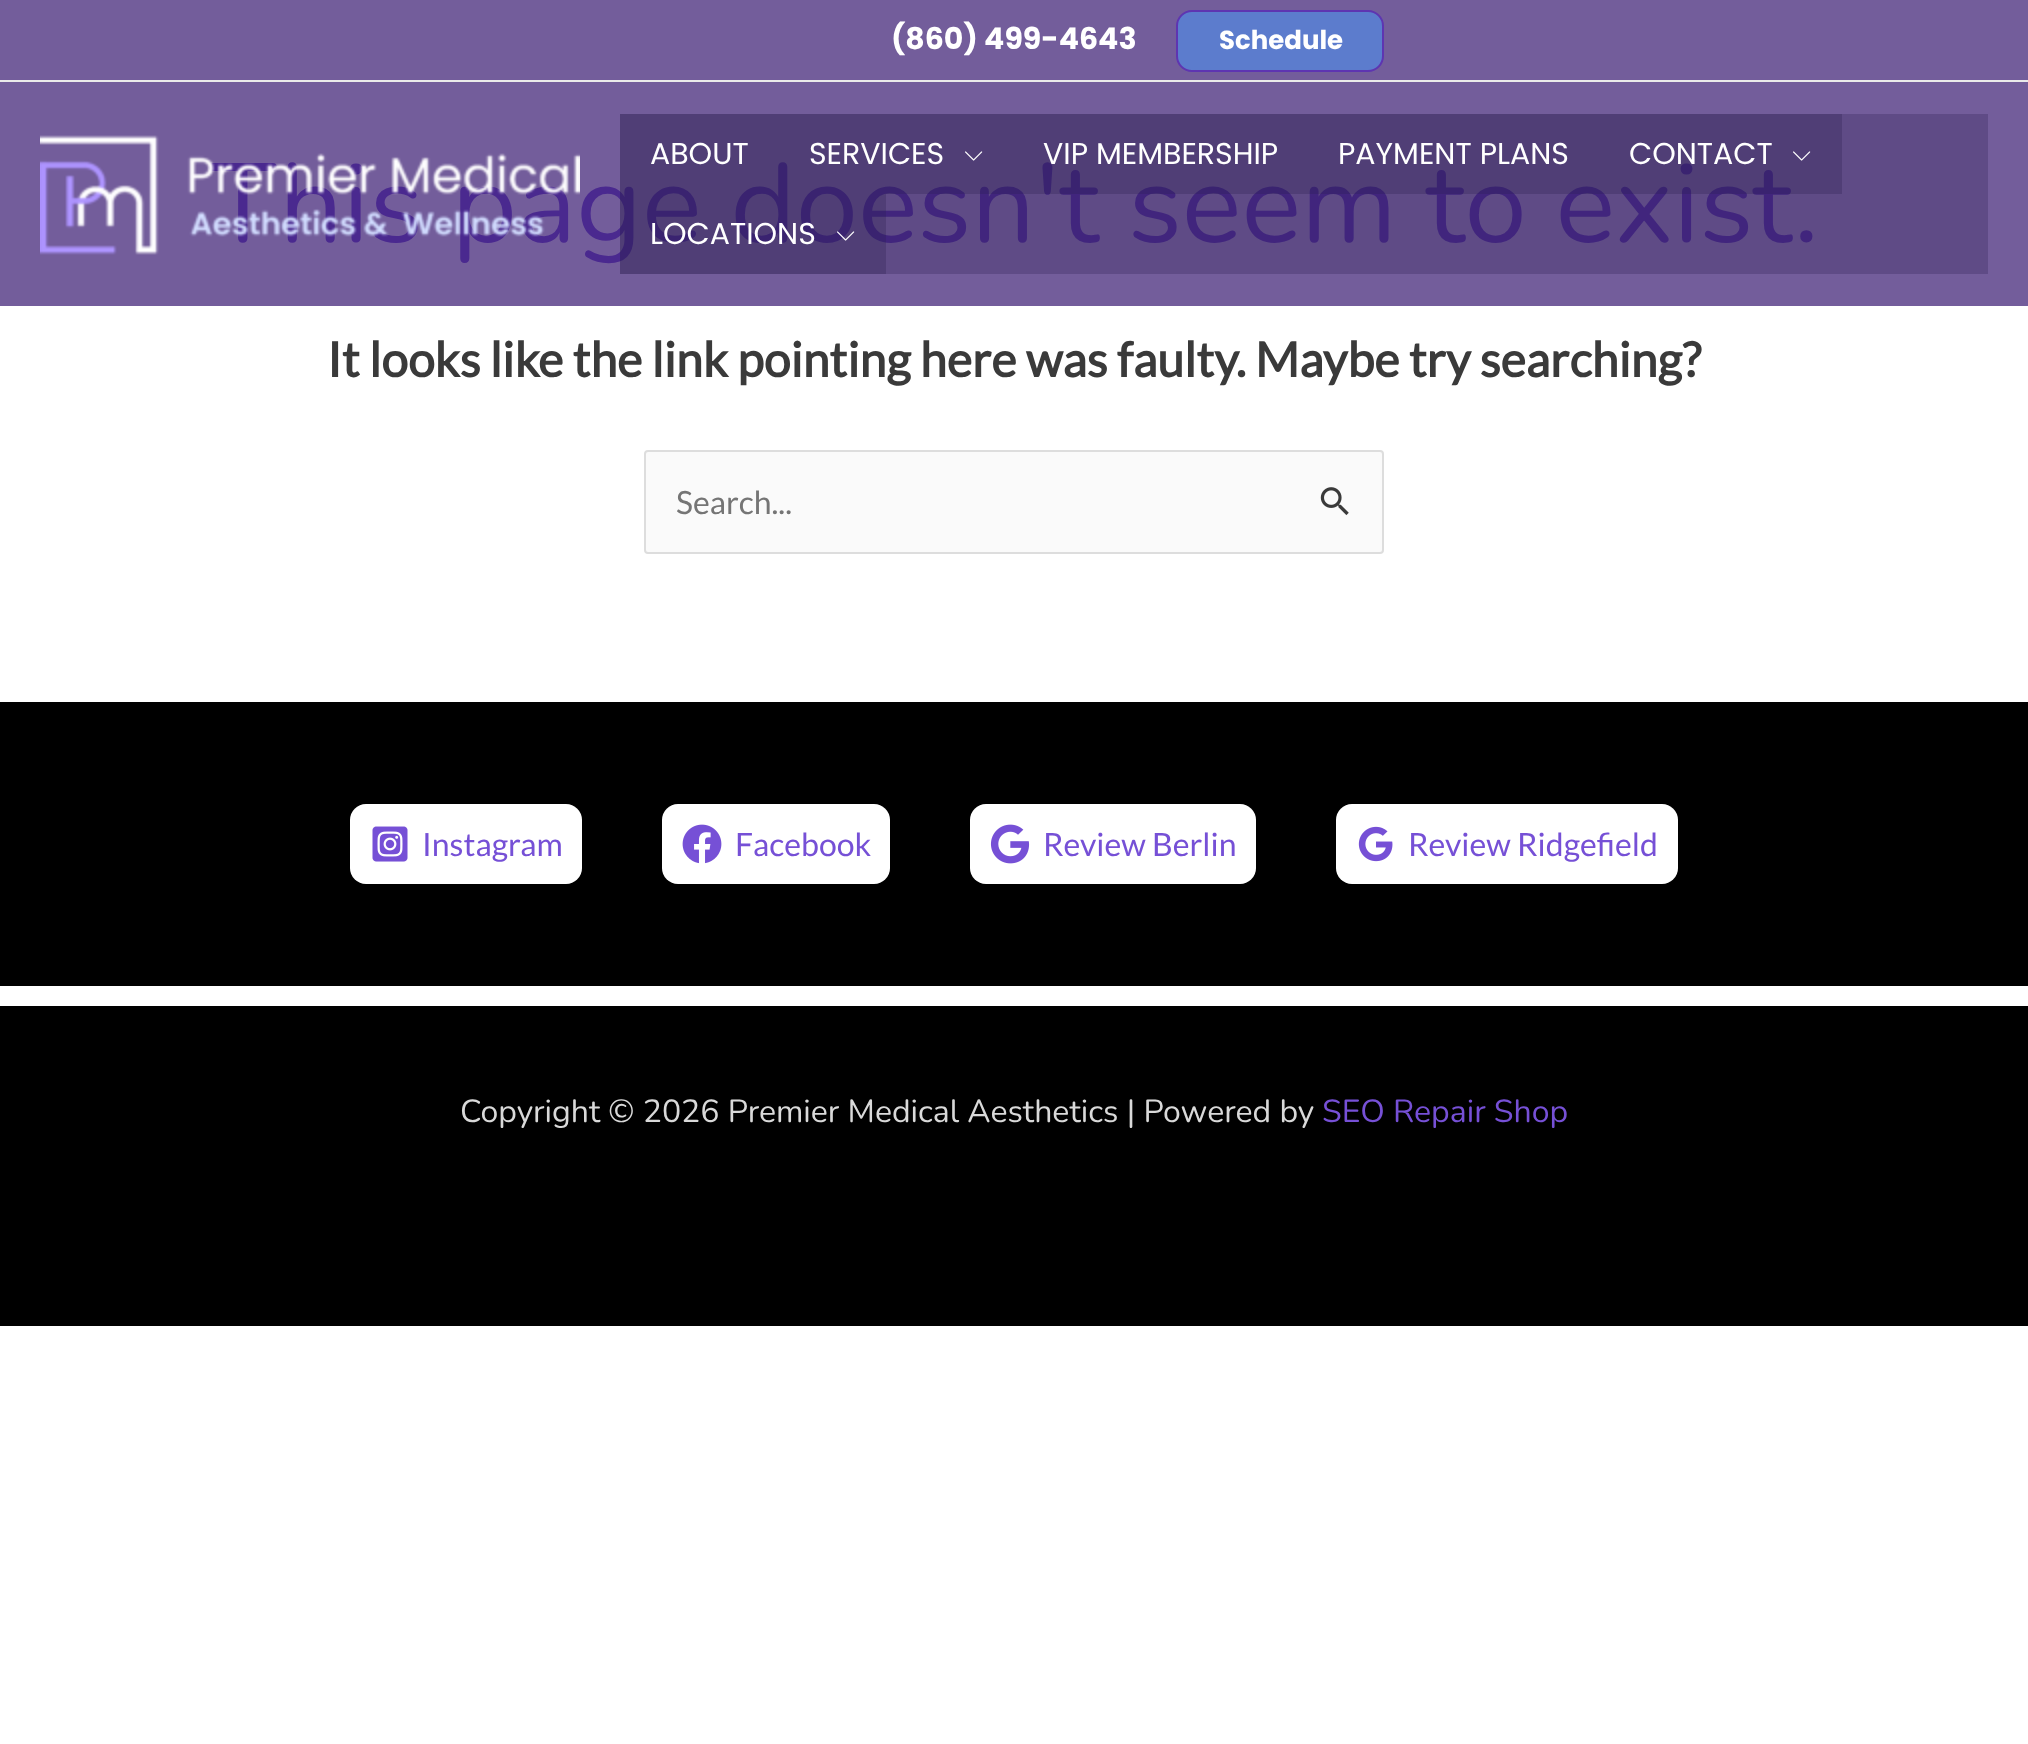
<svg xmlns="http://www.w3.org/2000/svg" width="2028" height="1744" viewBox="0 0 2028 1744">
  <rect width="100%" height="100%" fill="#ffffff"/>
  <rect x="0" y="82" width="2028" height="224" fill="#735d9b"/>
  <rect x="0" y="0" width="2028" height="80" fill="#735d9b"/>
  <rect x="0" y="80" width="2028" height="2" fill="#eaeaea"/>
  <text x="891" y="49" font-family="Poppins" font-size="30" font-weight="bold" fill="#ffffff">(860) 499-4643</text>
  <rect x="1177" y="11" width="206" height="60" rx="15" fill="#5c7ccd" stroke="#5e35b1" stroke-width="2"/>
  <text x="1219" y="49" font-family="Poppins" font-size="26" font-weight="bold" fill="#ffffff">Schedule</text>
  <text x="209" y="242" font-family="Nunito" font-size="112" fill="#4a298f">This page doesn't seem to exist.</text>
  <image x="40" y="135" width="540" height="120" href="img1.png"/>
  <rect x="620" y="114" width="1368" height="160" fill="#271c4f" fill-opacity="0.27"/>
  <rect x="620" y="114" width="158" height="80" fill="#271c4f" fill-opacity="0.27"/>
  <text x="650" y="164" font-family="Poppins" font-size="30" fill="#ffffff">ABOUT</text>
  <rect x="778" y="114" width="234" height="80" fill="#271c4f" fill-opacity="0.27"/>
  <text x="809" y="164" font-family="Poppins" font-size="30" fill="#ffffff">SERVICES</text>
  <image x="965" y="151" width="18" height="10" href="img2.png"/>
  <rect x="1012" y="114" width="296" height="80" fill="#271c4f" fill-opacity="0.27"/>
  <text x="1043" y="164" font-family="Poppins" font-size="30" fill="#ffffff">VIP MEMBERSHIP</text>
  <rect x="1308" y="114" width="292" height="80" fill="#271c4f" fill-opacity="0.27"/>
  <text x="1338" y="164" font-family="Poppins" font-size="30" fill="#ffffff">PAYMENT PLANS</text>
  <rect x="1600" y="114" width="242" height="80" fill="#271c4f" fill-opacity="0.27"/>
  <text x="1629" y="164" font-family="Poppins" font-size="30" fill="#ffffff">CONTACT</text>
  <image x="1793" y="151" width="18" height="10" href="img2.png"/>
  <rect x="620" y="194" width="266" height="80" fill="#271c4f" fill-opacity="0.27"/>
  <text x="650" y="244" font-family="Poppins" font-size="30" fill="#ffffff">LOCATIONS</text>
  <image x="837" y="231" width="18" height="10" href="img3.png"/>
  <text x="327" y="377" font-family="Lato" font-size="48" font-weight="bold" fill="#3a3a3a">It looks like the link pointing here was faulty. Maybe try searching?</text>
  <rect x="645" y="451" width="738" height="102" rx="3" fill="#fafafa" stroke="#dddddd" stroke-width="2"/>
  <text x="676" y="514" font-family="Lato" font-size="32" fill="#757575">Search...</text>
  <image x="1320" y="487" width="29" height="29" href="img4.png"/>
  <rect x="0" y="702" width="2028" height="284" fill="#000000"/>
  <rect x="350" y="804" width="232" height="80" rx="16" fill="#ffffff"/>
  <image x="372" y="826" width="36" height="36" href="img5.png"/>
  <text x="422" y="856" font-family="Lato" font-size="32" fill="#7650d6">Instagram</text>
  <rect x="662" y="804" width="228" height="80" rx="16" fill="#ffffff"/>
  <image x="682" y="824" width="40" height="40" href="img6.png"/>
  <text x="735" y="856" font-family="Lato" font-size="32" fill="#7650d6">Facebook</text>
  <rect x="970" y="804" width="286" height="80" rx="16" fill="#ffffff"/>
  <image x="990" y="824" width="40" height="40" href="img7.png"/>
  <text x="1043" y="856" font-family="Lato" font-size="32" fill="#7650d6">Review Berlin</text>
  <rect x="1336" y="804" width="342" height="80" rx="16" fill="#ffffff"/>
  <image x="1358" y="826" width="35" height="36" href="img8.png"/>
  <text x="1408" y="856" font-family="Lato" font-size="32" fill="#7650d6">Review Ridgefield</text>
  <rect x="0" y="1006" width="2028" height="320" fill="#000000"/>
  <text x="460" y="1122" font-family="Nunito" font-size="32" fill="#d9d9d9">Copyright © 2026 Premier Medical Aesthetics | Powered by</text>
  <text x="1322" y="1122" font-family="Nunito" font-size="32" fill="#7650d6">SEO Repair Shop</text>
</svg>
